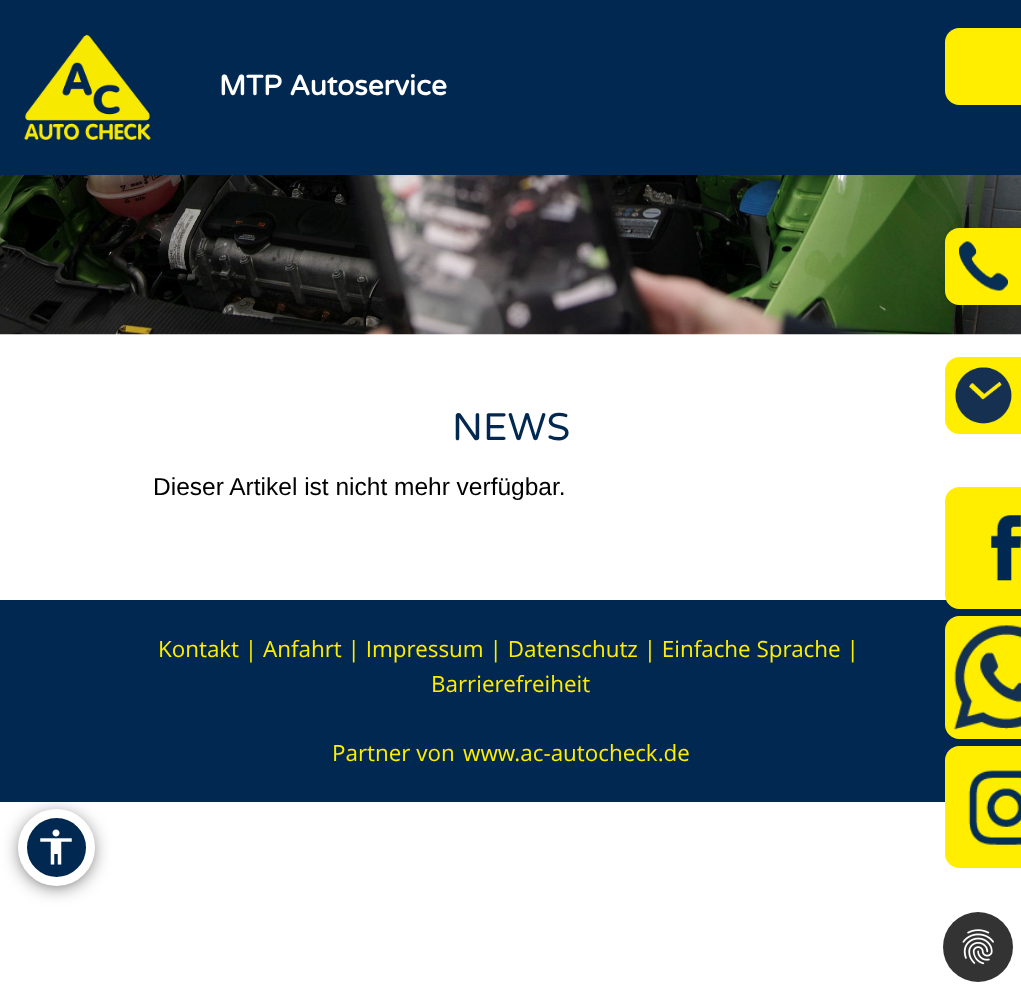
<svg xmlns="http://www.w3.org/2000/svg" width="1021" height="989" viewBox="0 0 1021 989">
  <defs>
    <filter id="blur1" x="-50%" y="-200%" width="200%" height="500%"><feGaussianBlur stdDeviation="10.5"/></filter>
  </defs>
  <rect width="100%" height="100%" fill="#ffffff"/>
  <rect x="0" y="0" width="1021" height="175" fill="#002851"/>
  <image x="24" y="35" width="127" height="105" href="img1.png"/>
  <text x="219" y="95" font-family="Varela Round" font-size="28" font-weight="bold" fill="#ffffff">MTP Autoservice</text>
  <path d="M959 28H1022V105H959C951.5 105 945 98.5 945 91V42C945 34.5 951.5 28 959 28Z" fill="#ffee00"/>
  <image x="0" y="175" width="1021" height="160" href="img2.png"/>
  <text x="452" y="440" font-family="Varela Round" font-size="38.5" fill="#002851">NEWS</text>
  <text x="153" y="495" font-family="Liberation Sans" font-size="24.5" fill="#000000">Dieser Artikel ist nicht mehr verfügbar.</text>
  <path d="M959 228H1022V305H959C951.5 305 945 298.5 945 291V242C945 234.5 951.5 228 959 228Z" fill="#ffee00"/>
  <image x="959" y="241" width="49" height="50" href="img3.png"/>
  <path d="M959 357H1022V434H959C951.5 434 945 427.5 945 420V371C945 363.5 951.5 357 959 357Z" fill="#ffee00"/>
  <image x="955" y="367" width="57" height="57" href="img4.png"/>
  <rect x="0" y="600" width="1021" height="202" fill="#002851"/>
  <path d="M959 487H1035V609H959C951.5 609 945 602.5 945 595V501C945 493.5 951.5 487 959 487Z" fill="#ffee00"/>
  <image x="991" y="515" width="30" height="66" href="img5.png"/>
  <path d="M959 616H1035V739H959C951.5 739 945 732.5 945 725V630C945 622.5 951.5 616 959 616Z" fill="#ffee00"/>
  <image x="954" y="625" width="67" height="105" href="img6.png"/>
  <path d="M959 746H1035V868H959C951.5 868 945 861.5 945 854V760C945 752.5 951.5 746 959 746Z" fill="#ffee00"/>
  <image x="968" y="770" width="53" height="75" href="img7.png"/>
  <text x="158" y="657" font-family="Open Sans" font-size="22.4" fill="#ffee00">Kontakt | Anfahrt | Impressum | Datenschutz | Einfache Sprache |</text>
  <text x="431" y="692" font-family="Open Sans" font-size="22.4" fill="#ffee00">Barrierefreiheit</text>
  <text x="332" y="761" font-family="Open Sans" font-size="22.4" fill="#ffee00">Partner von</text>
  <text x="463" y="761" font-family="Open Sans" font-size="22.4" fill="#ffee00">www.ac-autocheck.de</text>
  <rect x="25" y="819" width="63" height="63" rx="31.5" fill="#000000" filter="url(#blur1)"/>
  <circle cx="56.5" cy="847.5" r="34" fill="#002851" stroke="#ffffff" stroke-width="9"/>
  <image x="40" y="829" width="32" height="36" href="img8.png"/>
  <circle cx="978" cy="947" r="35" fill="#333333"/>
  <image x="962" y="929" width="32" height="36" href="img9.png"/>
</svg>
